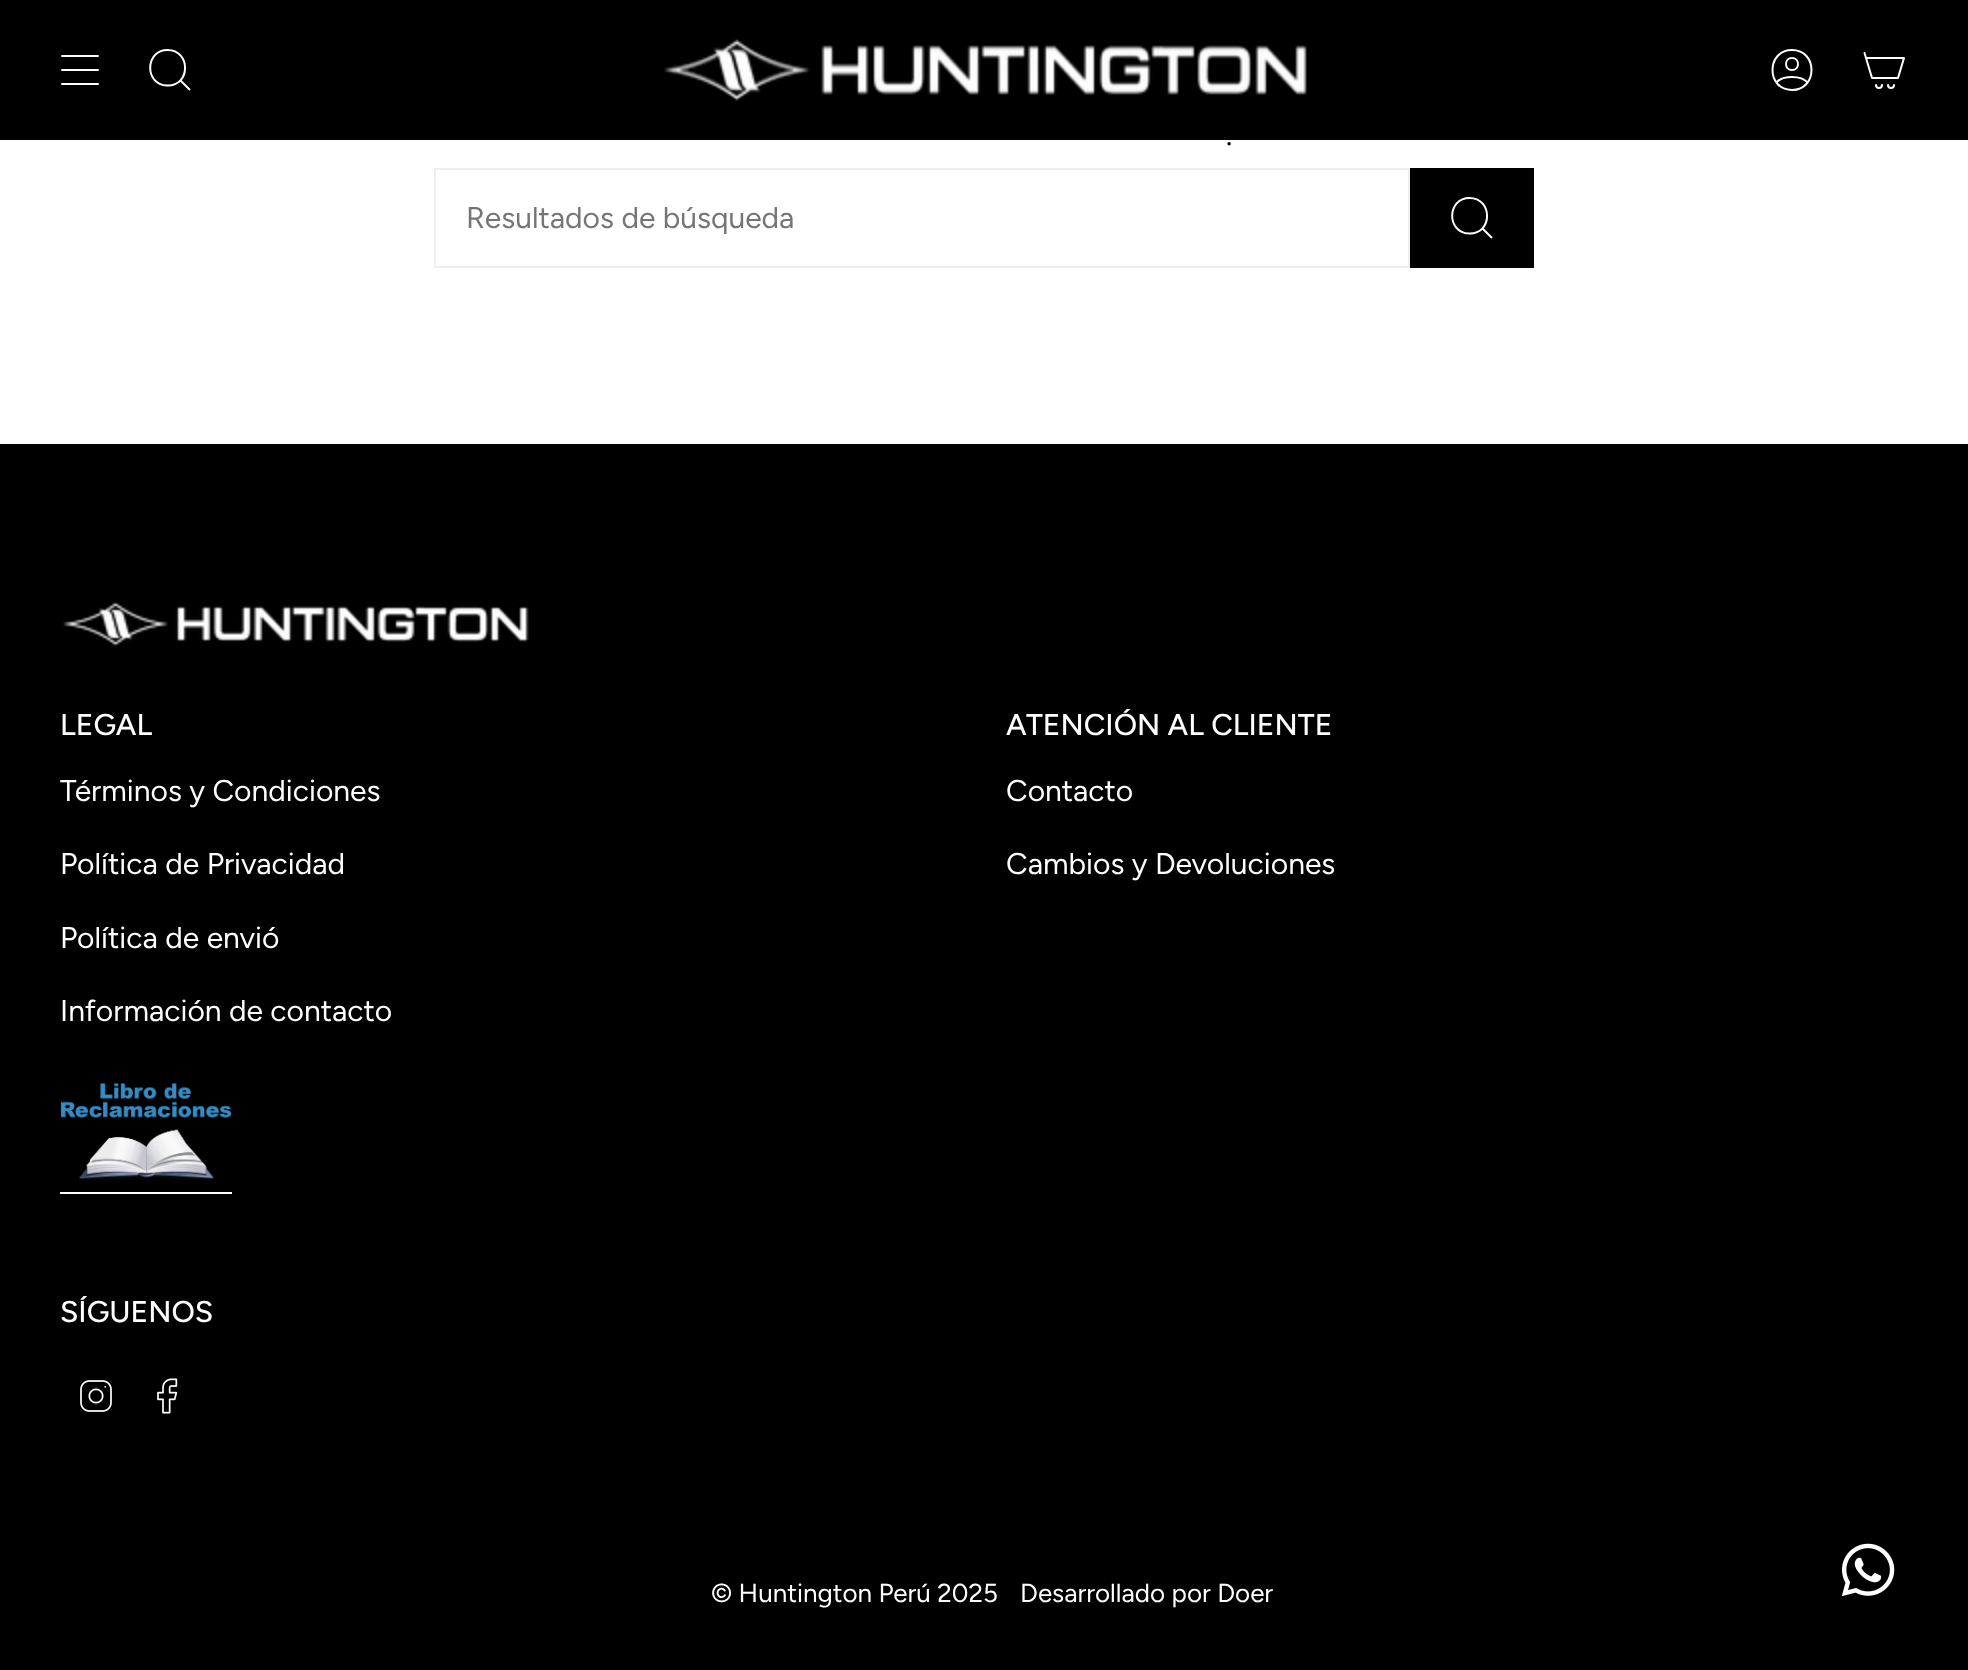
<svg xmlns="http://www.w3.org/2000/svg" width="1968" height="1670" viewBox="0 0 1968 1670">
  <rect width="100%" height="100%" fill="#ffffff"/>
  <rect x="0" y="0" width="1968" height="140" fill="#000000"/>
  <path d="M62 56H98M62 70H98M62 84H98" fill="none" stroke="#ffffff" stroke-width="2" stroke-linecap="round" stroke-linejoin="round"/>
  <path d="M167.5 50C191 50 191 86.5 167 85.5C144 84.5 145 50 167.5 50ZM180 80L190 90" fill="none" stroke="#ffffff" stroke-width="2"/>
  <image x="664" y="39" width="643" height="62" href="img1.png"/>
  <path d="M1792 50C1766 50 1766 90 1792 90C1818 90 1818 50 1792 50ZM1776.5 82.5C1782.5 75 1801.5 75 1807.5 82.5M1792 70C1800 70 1800 58 1792 58C1784 58 1784 70 1792 70Z" fill="none" stroke="#ffffff" stroke-width="2" stroke-linecap="round" stroke-linejoin="round"/>
  <path d="M1866 58H1904L1898 78H1872ZM1866 58L1864.5 53M1882 85C1882 89 1876 89 1876 85M1894 85C1894 89 1888 89 1888 85" fill="none" stroke="#ffffff" stroke-width="2" stroke-linecap="round" stroke-linejoin="round"/>
  <text x="1226" y="145" font-family="Figtree" font-size="30" fill="#000000">.</text>
  <rect x="435" y="169" width="974" height="98" fill="none" stroke="#eeeeee" stroke-width="2"/>
  <text x="466" y="228" font-family="Figtree" font-size="30" fill="#757575">Resultados de búsqueda</text>
  <rect x="1410" y="168" width="124" height="100" fill="#000000"/>
  <path d="M1469.5 198C1493 198 1493 234.5 1469 233.5C1446 232.5 1447 198 1469.5 198ZM1482 228L1492 238" fill="none" stroke="#ffffff" stroke-width="2"/>
  <rect x="0" y="444" width="1968" height="1226" fill="#000000"/>
  <image x="63" y="601" width="466" height="46" href="img2.png"/>
  <text x="60" y="735" font-family="Figtree" font-size="30" font-weight="500" fill="#ffffff">LEGAL</text>
  <text x="60" y="801" font-family="Figtree" font-size="30" fill="#ffffff">Términos y Condiciones</text>
  <text x="60" y="874" font-family="Figtree" font-size="30" fill="#ffffff">Política de Privacidad</text>
  <text x="60" y="948" font-family="Figtree" font-size="30" fill="#ffffff">Política de envió</text>
  <text x="60" y="1021" font-family="Figtree" font-size="30" fill="#ffffff">Información de contacto</text>
  <image x="60" y="1083" width="172" height="98" href="img3.png"/>
  <rect x="60" y="1192" width="172" height="2" fill="#ffffff"/>
  <text x="1006" y="735" font-family="Figtree" font-size="30" font-weight="500" fill="#ffffff">ATENCIÓN AL CLIENTE</text>
  <text x="1006" y="801" font-family="Figtree" font-size="30" fill="#ffffff">Contacto</text>
  <text x="1006" y="874" font-family="Figtree" font-size="30" fill="#ffffff">Cambios y Devoluciones</text>
  <text x="60" y="1322" font-family="Figtree" font-size="30" font-weight="500" fill="#ffffff">SÍGUENOS</text>
  <image x="80" y="1380" width="32" height="32" href="img4.png"/>
  <image x="157" y="1378" width="21" height="36" href="img5.png"/>
  <text x="711" y="1602" font-family="Figtree" font-size="26" fill="#ffffff">© Huntington Perú 2025</text>
  <text x="1020" y="1602" font-family="Figtree" font-size="26" fill="#ffffff">Desarrollado por Doer</text>
  <image x="1841" y="1543" width="54" height="54" href="img6.png"/>
</svg>
